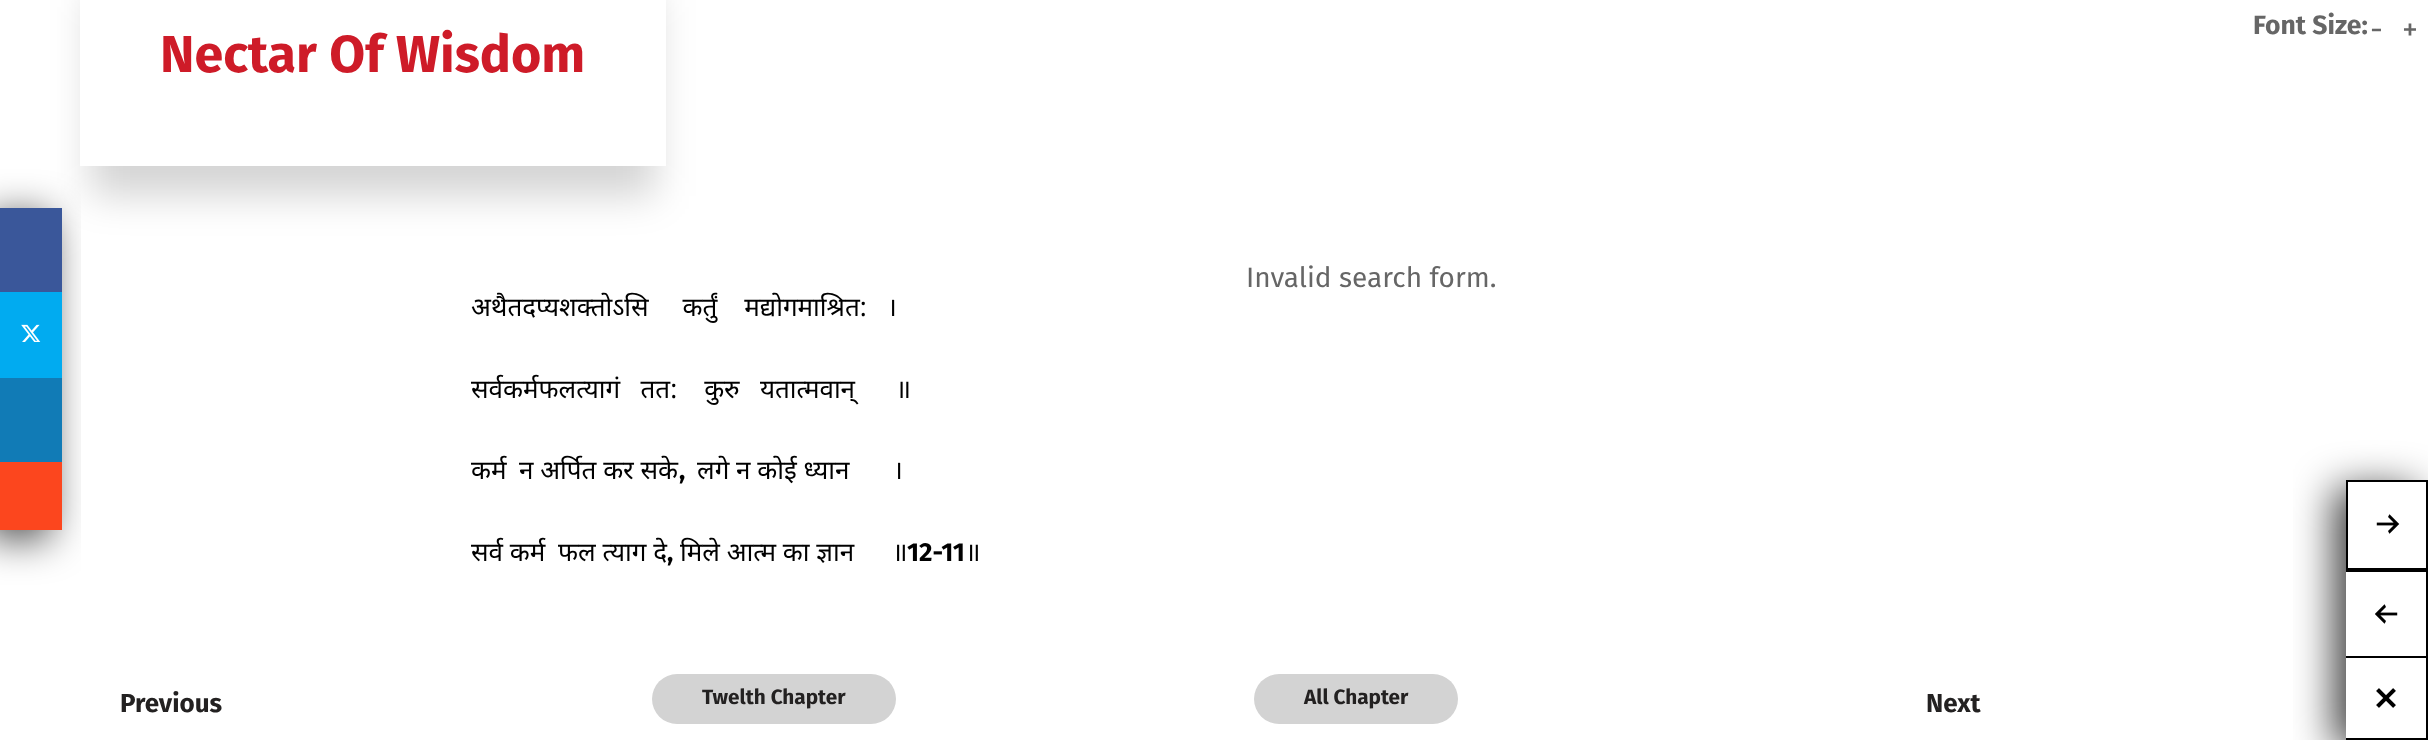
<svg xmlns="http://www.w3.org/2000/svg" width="2428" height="740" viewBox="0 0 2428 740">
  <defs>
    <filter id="blur1" x="-50%" y="-200%" width="200%" height="500%"><feGaussianBlur stdDeviation="20"/></filter>
    <clipPath id="clip1"><path d="M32 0H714V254H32ZM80-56H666V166H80Z" clip-rule="evenodd"/></clipPath>
    <filter id="blur2" x="-50%" y="-200%" width="200%" height="500%"><feGaussianBlur stdDeviation="19"/></filter>
    <clipPath id="clip2"><path d="M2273 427H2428V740H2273ZM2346 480H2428V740H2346Z" clip-rule="evenodd"/></clipPath>
  </defs>
  <rect width="100%" height="100%" fill="#ffffff"/>
  <text x="2253" y="34" font-family="Fira Sans" font-size="26.5" font-weight="bold" fill="#666666">Font Size:</text>
  <text x="2370" y="40" font-family="Fira Sans" font-size="32" fill="#666666">-</text>
  <text x="2402" y="40" font-family="Fira Sans" font-size="32" fill="#666666">+</text>
  <rect x="-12" y="216" width="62" height="322" fill="#000000" fill-opacity="0.75" filter="url(#blur1)"/>
  <g clip-path="url(#clip1)">
    <rect x="90" y="-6" width="566" height="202" fill="#000000" fill-opacity="0.17" filter="url(#blur2)"/>
  </g>
  <rect x="0" y="208" width="62" height="84" fill="#3a579a"/>
  <rect x="0" y="292" width="62" height="86" fill="#01abf0"/>
  <image x="21" y="324" width="20" height="18" href="img1.png"/>
  <rect x="0" y="378" width="62" height="84" fill="#117bb6"/>
  <rect x="0" y="462" width="62" height="68" fill="#fc461e"/>
  <text x="160" y="72" font-family="Fira Sans" font-size="52" font-weight="bold" fill="#ce1b28">Nectar Of Wisdom</text>
  <text x="1246" y="287" font-family="Fira Sans" font-size="28" fill="#666666">Invalid search form.</text>
  <text x="471" y="316" font-family="Noto Sans" font-size="26" fill="#000000" xml:space="preserve">अथैतदप्यशक्तोऽसि     कर्तुं    मद्योगमाश्रित:   ।</text>
  <text x="471" y="398" font-family="Noto Sans" font-size="26" fill="#000000" xml:space="preserve">सर्वकर्मफलत्यागं   तत:    कुरु   यतात्मवान्      ॥</text>
  <text x="471" y="479" font-family="Noto Sans" font-size="26" fill="#000000">कर्म</text>
  <text x="519" y="479" font-family="Noto Sans" font-size="26" fill="#000000">न अर्पित कर सके</text>
  <text x="679" y="479" font-family="Fira Sans" font-size="26" font-weight="bold" fill="#000000">,</text>
  <text x="697" y="479" font-family="Noto Sans" font-size="26" fill="#000000">लगे न कोई ध्यान</text>
  <text x="893" y="479" font-family="Noto Sans" font-size="26" fill="#000000">।</text>
  <text x="471" y="561" font-family="Noto Sans" font-size="26" fill="#000000">सर्व कर्म</text>
  <text x="558" y="561" font-family="Noto Sans" font-size="26" fill="#000000">फल त्याग दे</text>
  <text x="667" y="561" font-family="Fira Sans" font-size="26" font-weight="bold" fill="#000000">,</text>
  <text x="680" y="561" font-family="Noto Sans" font-size="26" fill="#000000">मिले आत्म का ज्ञान</text>
  <text x="892" y="561" font-family="Noto Sans" font-size="26" fill="#000000">॥</text>
  <text x="907" y="561" font-family="Fira Sans" font-size="26" font-weight="bold" fill="#000000">12-11</text>
  <text x="965" y="561" font-family="Noto Sans" font-size="26" fill="#000000">॥</text>
  <text x="120" y="712" font-family="Fira Sans" font-size="26" font-weight="bold" fill="#232121">Previous</text>
  <rect x="652" y="674" width="244" height="50" rx="25" fill="#d3d3d3"/>
  <text x="702" y="704" font-family="Fira Sans" font-size="20.75" font-weight="bold" fill="#232121">Twelth Chapter</text>
  <rect x="1254" y="674" width="204" height="50" rx="25" fill="#d3d3d3"/>
  <text x="1304" y="704" font-family="Fira Sans" font-size="20.75" font-weight="bold" fill="#232121">All Chapter</text>
  <text x="1926" y="712" font-family="Fira Sans" font-size="26" font-weight="bold" fill="#232121">Next</text>
  <g clip-path="url(#clip2)">
    <rect x="2334" y="488" width="82" height="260" fill="#000000" fill-opacity="0.75" filter="url(#blur1)"/>
  </g>
  <rect x="2347" y="481" width="80" height="88" fill="none" stroke="#000000" stroke-width="2"/>
  <image x="2376" y="514" width="24" height="20" href="img2.png"/>
  <rect x="2346" y="570" width="82" height="2" fill="#000000"/>
  <rect x="2426" y="570" width="2" height="86" fill="#000000"/>
  <image x="2375" y="604" width="23" height="20" href="img3.png"/>
  <rect x="2346" y="656" width="82" height="2" fill="#000000"/>
  <rect x="2426" y="656" width="2" height="84" fill="#000000"/>
  <rect x="2346" y="738" width="82" height="2" fill="#000000"/>
  <image x="2376" y="688" width="20" height="20" href="img4.png"/>
</svg>
